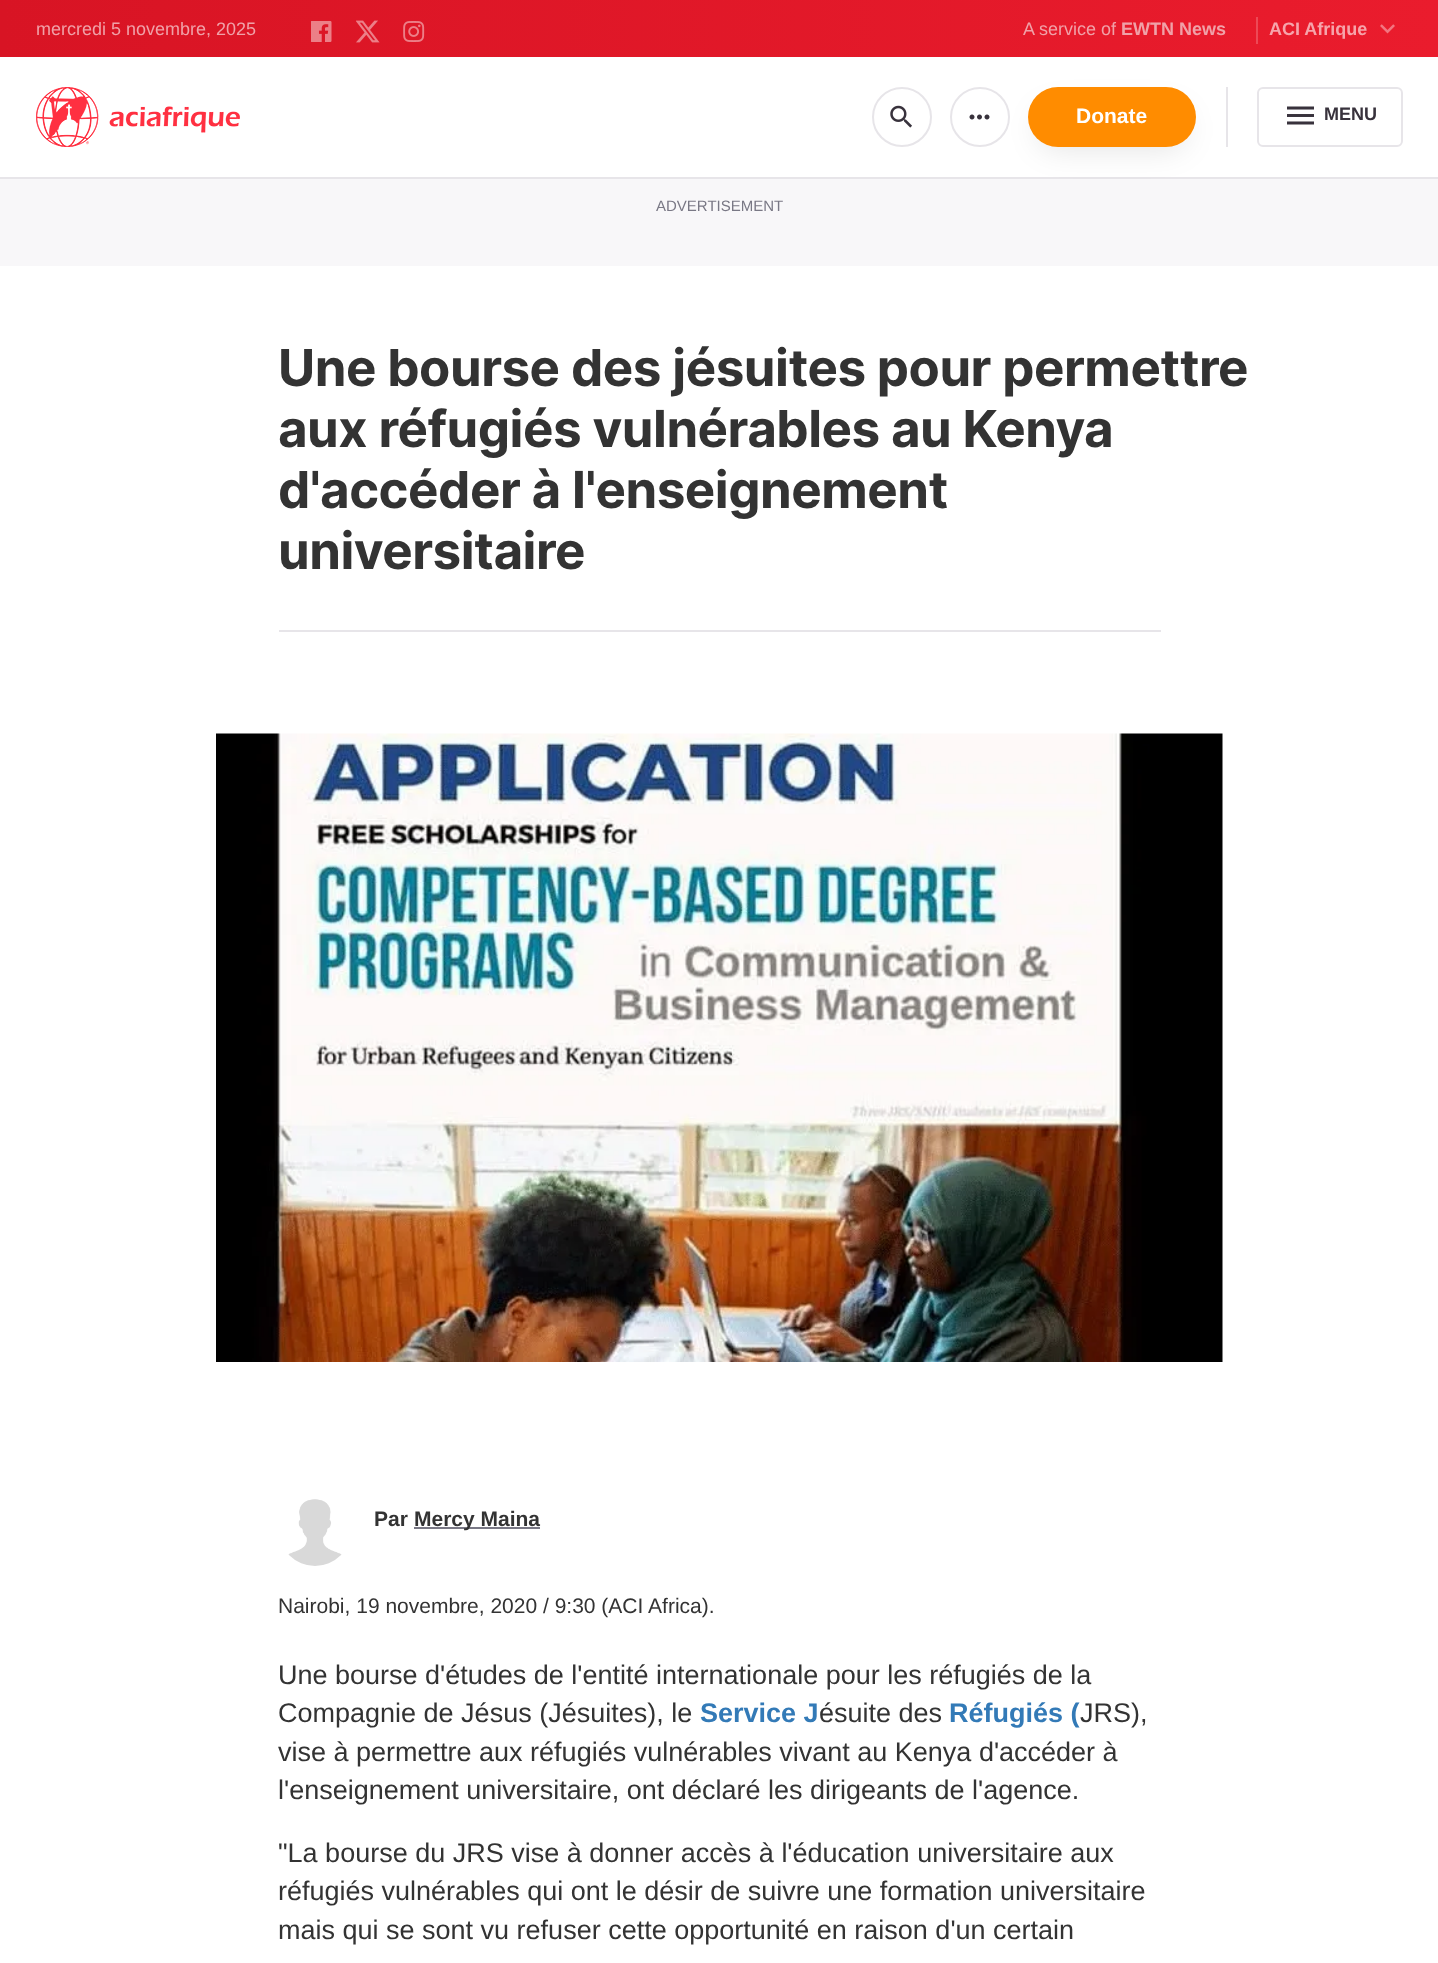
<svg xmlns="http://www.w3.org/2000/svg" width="1438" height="1963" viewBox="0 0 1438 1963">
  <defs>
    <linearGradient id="g1" gradientUnits="userSpaceOnUse" x1="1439" y1="28" x2="0" y2="29"><stop offset="0" stop-color="#ea1c2d"/><stop offset="1" stop-color="#d81424"/></linearGradient>
    <filter id="blur1" x="-50%" y="-200%" width="200%" height="500%"><feGaussianBlur stdDeviation="15"/></filter>
  </defs>
  <rect width="100%" height="100%" fill="#ffffff"/>
  <rect x="0" y="177" width="1438" height="2" fill="#e7e5e9"/>
  <rect x="0" y="0" width="1438" height="57" fill="url(#g1)"/>
  <text x="36" y="35" font-family="Liberation Sans" font-size="18" fill="#f0a1a8">mercredi 5 novembre, 2025</text>
  <image x="311" y="21" width="21" height="21" href="img1.png"/>
  <image x="356" y="20" width="24" height="23" href="img2.png"/>
  <image x="403" y="21" width="22" height="21" href="img3.png"/>
  <text x="1023" y="35" font-family="Liberation Sans" font-size="18" fill="#f0a1a8">A service of</text>
  <text x="1121" y="35" font-family="Liberation Sans" font-size="18" font-weight="bold" fill="#f0a1a8">EWTN News</text>
  <rect x="1256" y="17" width="2" height="27" fill="#ed4956"/>
  <text x="1269" y="35" font-family="Liberation Sans" font-size="18" font-weight="bold" fill="#f6a4ab">ACI Afrique</text>
  <image x="1380" y="24" width="15" height="10" href="img4.png"/>
  <image x="36" y="87" width="204" height="60" href="img5.png"/>
  <circle cx="902" cy="117" r="29" fill="none" stroke="#e7e5e9" stroke-width="2"/>
  <image x="890" y="105" width="22" height="23" href="img6.png"/>
  <rect x="0" y="179" width="1438" height="87" fill="#f8f7f9"/>
  <rect x="1037" y="108" width="150" height="42" rx="21" fill="#000000" fill-opacity="0.1" filter="url(#blur1)"/>
  <circle cx="980" cy="117" r="29" fill="none" stroke="#e7e5e9" stroke-width="2"/>
  <image x="969" y="114" width="21" height="6" href="img7.png"/>
  <rect x="1028" y="87" width="168" height="60" rx="30" fill="#ff8c00"/>
  <text x="1076" y="123" font-family="Liberation Sans" font-size="21" font-weight="bold" fill="#ffffff">Donate</text>
  <rect x="1226" y="87" width="2" height="60" fill="#e7e5e9"/>
  <rect x="1258" y="88" width="144" height="58" rx="5" fill="none" stroke="#e7e5e9" stroke-width="2"/>
  <image x="1287" y="106" width="27" height="19" href="img8.png"/>
  <text x="1324" y="120" font-family="Liberation Sans" font-size="18" font-weight="bold" fill="#38323c">MENU</text>
  <text x="656" y="211" font-family="Liberation Sans" font-size="15" fill="#797885">ADVERTISEMENT</text>
  <text x="278" y="386" font-family="Inter" font-size="51" font-weight="bold" letter-spacing="-0.5" fill="#333333">Une bourse des jésuites pour permettre</text>
  <text x="278" y="447" font-family="Inter" font-size="51" font-weight="bold" letter-spacing="-0.5" fill="#333333">aux réfugiés vulnérables au Kenya</text>
  <text x="278" y="508" font-family="Inter" font-size="51" font-weight="bold" letter-spacing="-0.5" fill="#333333">d'accéder à l'enseignement</text>
  <text x="278" y="569" font-family="Inter" font-size="51" font-weight="bold" letter-spacing="-0.5" fill="#333333">universitaire</text>
  <rect x="279" y="630" width="882" height="2" fill="#e7e5e9"/>
  <image x="216" y="733" width="1007" height="629" href="img9.png"/>
  <image x="288" y="1499" width="54" height="67" href="img10.png"/>
  <text x="374" y="1526" font-family="Liberation Sans" font-size="21" font-weight="bold" fill="#333333">Par</text>
  <rect x="414" y="1527" width="126" height="2" fill="#797885"/>
  <text x="414" y="1526" font-family="Liberation Sans" font-size="21" font-weight="bold" fill="#333333">Mercy Maina</text>
  <text x="278" y="1613" font-family="Liberation Sans" font-size="21" fill="#333333">Nairobi, 19 novembre, 2020 / 9:30 (ACI Africa).</text>
  <text x="278" y="1684" font-family="Liberation Sans" font-size="27" fill="#333333">Une bourse d'études de l'entité internationale pour les réfugiés de la</text>
  <text x="278" y="1722" font-family="Liberation Sans" font-size="27" fill="#333333">Compagnie de Jésus (Jésuites), le</text>
  <text x="700" y="1722" font-family="Liberation Sans" font-size="27" font-weight="bold" fill="#337ab7">Service J</text>
  <text x="819" y="1722" font-family="Liberation Sans" font-size="27" fill="#333333">ésuite des</text>
  <text x="949" y="1722" font-family="Liberation Sans" font-size="27" font-weight="bold" fill="#337ab7">Réfugiés (</text>
  <text x="1080" y="1722" font-family="Liberation Sans" font-size="27" fill="#333333">JRS),</text>
  <text x="278" y="1761" font-family="Liberation Sans" font-size="27" fill="#333333">vise à permettre aux réfugiés vulnérables vivant au Kenya d'accéder à</text>
  <text x="278" y="1799" font-family="Liberation Sans" font-size="27" fill="#333333">l'enseignement universitaire, ont déclaré les dirigeants de l'agence.</text>
  <text x="278" y="1862" font-family="Liberation Sans" font-size="27" fill="#333333">"La bourse du JRS vise à donner accès à l'éducation universitaire aux</text>
  <text x="278" y="1900" font-family="Liberation Sans" font-size="27" fill="#333333">réfugiés vulnérables qui ont le désir de suivre une formation universitaire</text>
  <text x="278" y="1939" font-family="Liberation Sans" font-size="27" fill="#333333">mais qui se sont vu refuser cette opportunité en raison d'un certain</text>
</svg>
